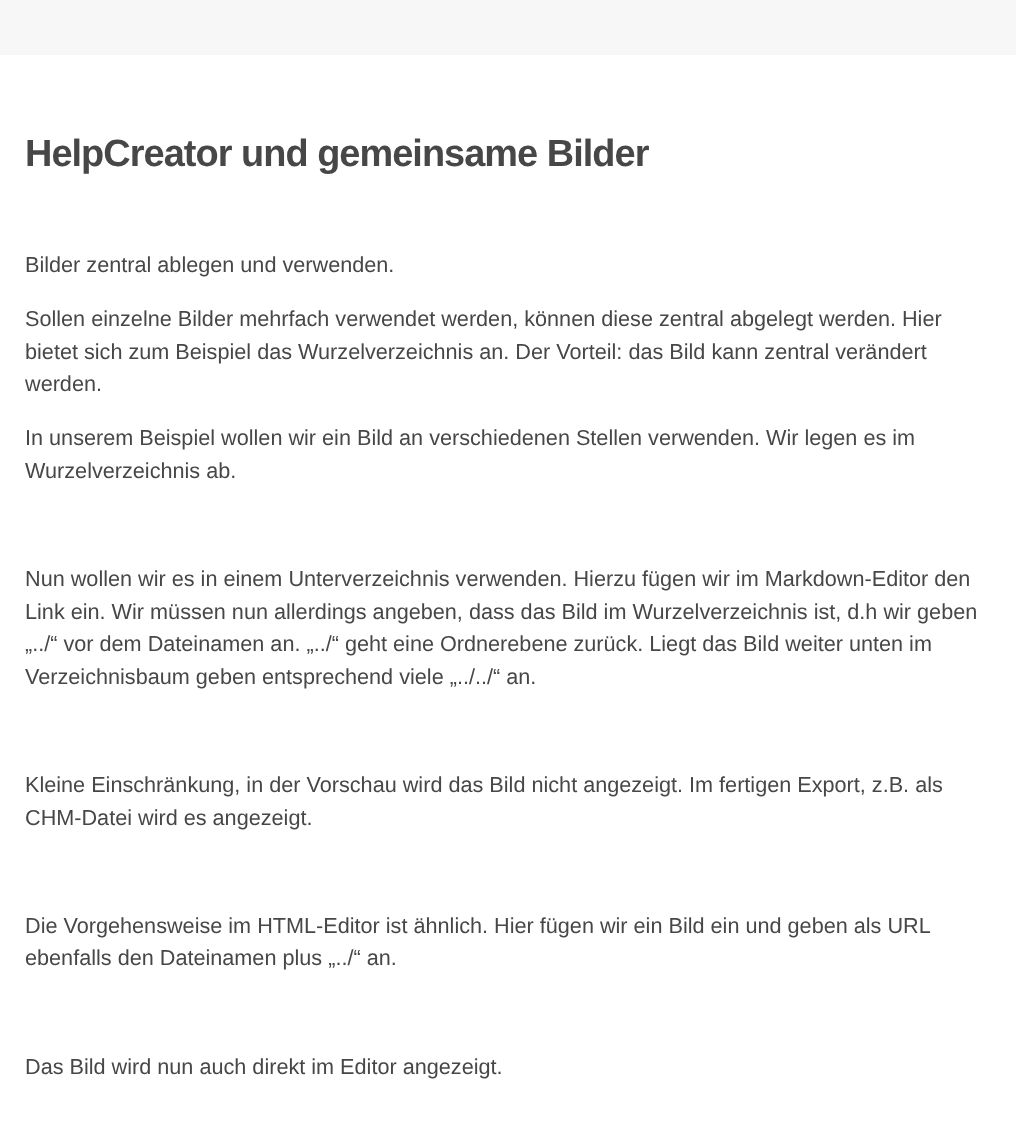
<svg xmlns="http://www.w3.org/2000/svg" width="1016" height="1138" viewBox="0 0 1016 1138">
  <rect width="100%" height="100%" fill="#f7f7f7"/>
  <rect x="0" y="55" width="1016" height="1083" fill="#ffffff"/>
  <text x="25" y="166" font-family="Liberation Sans" font-size="37.9" font-weight="bold" letter-spacing="-0.95" fill="#474747">HelpCreator und gemeinsame Bilder</text>
  <text x="25" y="272" font-family="Liberation Sans" font-size="21.65" fill="#474747">Bilder zentral ablegen und verwenden.</text>
  <text x="25" y="326" font-family="Liberation Sans" font-size="21.65" fill="#474747">Sollen einzelne Bilder mehrfach verwendet werden, können diese zentral abgelegt werden. Hier</text>
  <text x="25" y="359" font-family="Liberation Sans" font-size="21.65" fill="#474747">bietet sich zum Beispiel das Wurzelverzeichnis an. Der Vorteil: das Bild kann zentral verändert</text>
  <text x="25" y="391" font-family="Liberation Sans" font-size="21.65" fill="#474747">werden.</text>
  <text x="25" y="445" font-family="Liberation Sans" font-size="21.65" fill="#474747">In unserem Beispiel wollen wir ein Bild an verschiedenen Stellen verwenden. Wir legen es im</text>
  <text x="25" y="478" font-family="Liberation Sans" font-size="21.65" fill="#474747">Wurzelverzeichnis ab.</text>
  <text x="25" y="586" font-family="Liberation Sans" font-size="21.65" fill="#474747">Nun wollen wir es in einem Unterverzeichnis verwenden. Hierzu fügen wir im Markdown-Editor den</text>
  <text x="25" y="619" font-family="Liberation Sans" font-size="21.65" fill="#474747">Link ein. Wir müssen nun allerdings angeben, dass das Bild im Wurzelverzeichnis ist, d.h wir geben</text>
  <text x="25" y="651" font-family="Liberation Sans" font-size="21.65" fill="#474747">„../“ vor dem Dateinamen an. „../“ geht eine Ordnerebene zurück. Liegt das Bild weiter unten im</text>
  <text x="25" y="684" font-family="Liberation Sans" font-size="21.65" fill="#474747">Verzeichnisbaum geben entsprechend viele „../../“ an.</text>
  <text x="25" y="792" font-family="Liberation Sans" font-size="21.65" fill="#474747">Kleine Einschränkung, in der Vorschau wird das Bild nicht angezeigt. Im fertigen Export, z.B. als</text>
  <text x="25" y="825" font-family="Liberation Sans" font-size="21.65" fill="#474747">CHM-Datei wird es angezeigt.</text>
  <text x="25" y="933" font-family="Liberation Sans" font-size="21.65" fill="#474747">Die Vorgehensweise im HTML-Editor ist ähnlich. Hier fügen wir ein Bild ein und geben als URL</text>
  <text x="25" y="965" font-family="Liberation Sans" font-size="21.65" fill="#474747">ebenfalls den Dateinamen plus „../“ an.</text>
  <text x="25" y="1074" font-family="Liberation Sans" font-size="21.65" fill="#474747">Das Bild wird nun auch direkt im Editor angezeigt.</text>
</svg>
